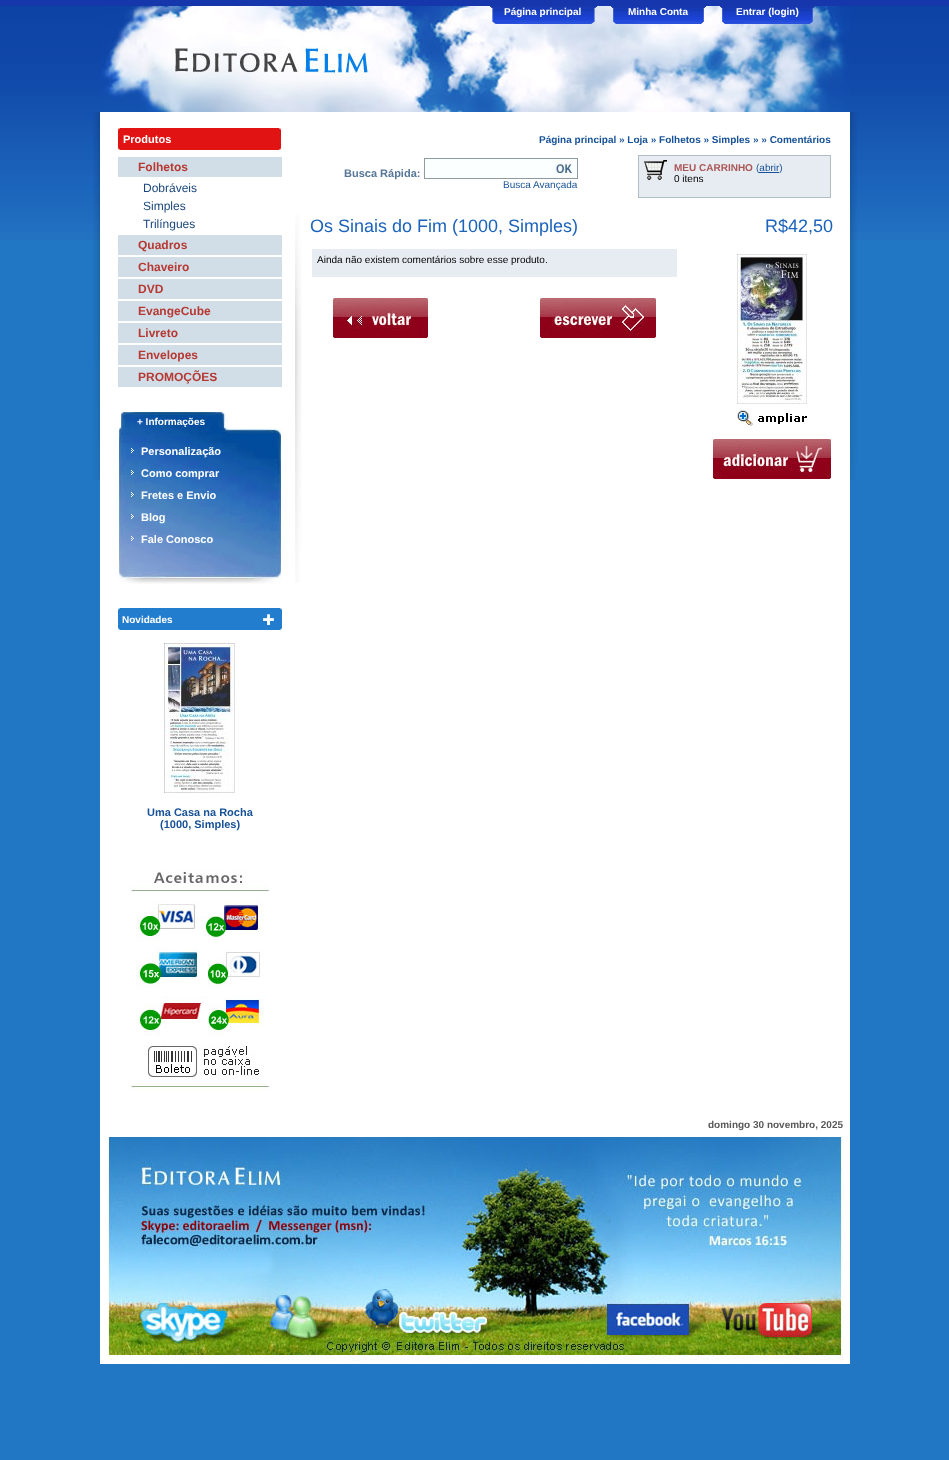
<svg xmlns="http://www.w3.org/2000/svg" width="949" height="1460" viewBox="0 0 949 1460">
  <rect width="100%" height="100%" fill="#2177c3"/>
  <image x="0" y="6" width="949" height="234" href="img1.png"/>
  <rect x="0" y="0" width="949" height="6" fill="#1636ac"/>
  <image x="93" y="112" width="764" height="368" href="img2.png"/>
  <rect x="100" y="112" width="750" height="1252" fill="#ffffff"/>
  <image x="100" y="6" width="750" height="106" href="img3.png"/>
  <image x="490" y="6" width="107" height="18" href="img4.png"/>
  <text x="504" y="15" font-family="Liberation Sans" font-size="10" font-weight="bold" fill="#ffffff">Página principal</text>
  <image x="611" y="6" width="95" height="18" href="img5.png"/>
  <text x="628" y="15" font-family="Liberation Sans" font-size="10" font-weight="bold" fill="#ffffff">Minha Conta</text>
  <image x="720" y="6" width="95" height="18" href="img6.png"/>
  <text x="736" y="15" font-family="Liberation Sans" font-size="10" font-weight="bold" fill="#ffffff">Entrar (login)</text>
  <image x="118" y="128" width="2" height="22" href="img7.png"/>
  <rect x="120" y="128" width="159" height="22" fill="#e21313"/>
  <text x="123" y="143" font-family="Liberation Sans" font-size="11" font-weight="bold" fill="#ffffff">Produtos</text>
  <image x="279" y="128" width="2" height="22" href="img8.png"/>
  <text x="539" y="143" font-family="Liberation Sans" font-size="10" font-weight="bold" fill="#175197">Página principal » Loja » Folhetos » Simples » » Comentários</text>
  <image x="295" y="215" width="7" height="368" href="img9.png"/>
  <rect x="118" y="157" width="164" height="20" fill="#d1dee7"/>
  <text x="138" y="171" font-family="Liberation Sans" font-size="12" font-weight="bold" fill="#b63832">Folhetos</text>
  <text x="143" y="192" font-family="Liberation Sans" font-size="12" fill="#1b477d">Dobráveis</text>
  <text x="143" y="210" font-family="Liberation Sans" font-size="12" fill="#1b477d">Simples</text>
  <text x="143" y="228" font-family="Liberation Sans" font-size="12" fill="#1b477d">Trilíngues</text>
  <rect x="118" y="235" width="164" height="20" fill="#d1dee7"/>
  <text x="138" y="249" font-family="Liberation Sans" font-size="12" font-weight="bold" fill="#b63832">Quadros</text>
  <rect x="118" y="257" width="164" height="20" fill="#d1dee7"/>
  <text x="138" y="271" font-family="Liberation Sans" font-size="12" font-weight="bold" fill="#b63832">Chaveiro</text>
  <rect x="118" y="279" width="164" height="20" fill="#d1dee7"/>
  <text x="138" y="293" font-family="Liberation Sans" font-size="12" font-weight="bold" fill="#b63832">DVD</text>
  <rect x="118" y="301" width="164" height="20" fill="#d1dee7"/>
  <text x="138" y="315" font-family="Liberation Sans" font-size="12" font-weight="bold" fill="#b63832">EvangeCube</text>
  <rect x="118" y="323" width="164" height="20" fill="#d1dee7"/>
  <text x="138" y="337" font-family="Liberation Sans" font-size="12" font-weight="bold" fill="#b63832">Livreto</text>
  <rect x="118" y="345" width="164" height="20" fill="#d1dee7"/>
  <text x="138" y="359" font-family="Liberation Sans" font-size="12" font-weight="bold" fill="#b63832">Envelopes</text>
  <rect x="118" y="367" width="164" height="20" fill="#d1dee7"/>
  <text x="138" y="381" font-family="Liberation Sans" font-size="12" font-weight="bold" fill="#b63832">PROMOÇÕES</text>
  <image x="119" y="411" width="162" height="173" href="img10.png"/>
  <text x="137" y="425" font-family="Liberation Sans" font-size="10" font-weight="bold" fill="#ffffff">+ Informações</text>
  <image x="131" y="448" width="3" height="5" href="img11.png"/>
  <text x="141" y="455" font-family="Liberation Sans" font-size="11" font-weight="bold" fill="#ffffff">Personalização</text>
  <image x="131" y="470" width="3" height="5" href="img12.png"/>
  <text x="141" y="477" font-family="Liberation Sans" font-size="11" font-weight="bold" fill="#ffffff">Como comprar</text>
  <image x="131" y="492" width="3" height="5" href="img13.png"/>
  <text x="141" y="499" font-family="Liberation Sans" font-size="11" font-weight="bold" fill="#ffffff">Fretes e Envio</text>
  <image x="131" y="514" width="3" height="5" href="img14.png"/>
  <text x="141" y="521" font-family="Liberation Sans" font-size="11" font-weight="bold" fill="#ffffff">Blog</text>
  <image x="131" y="536" width="3" height="5" href="img15.png"/>
  <text x="141" y="543" font-family="Liberation Sans" font-size="11" font-weight="bold" fill="#ffffff">Fale Conosco</text>
  <image x="118" y="608" width="2" height="22" href="img16.png"/>
  <rect x="120" y="608" width="160" height="22" fill="#237dcf"/>
  <text x="122" y="623" font-family="Liberation Sans" font-size="10" font-weight="bold" fill="#ffffff">Novidades</text>
  <image x="263" y="614" width="11" height="11" href="img17.png"/>
  <image x="280" y="608" width="2" height="22" href="img18.png"/>
  <image x="164" y="643" width="71" height="150" href="img19.png"/>
  <text x="147" y="816" font-family="Liberation Sans" font-size="11" font-weight="bold" fill="#175197">Uma Casa na Rocha</text>
  <text x="160" y="828" font-family="Liberation Sans" font-size="11" font-weight="bold" fill="#175197">(1000, Simples)</text>
  <image x="128" y="869" width="143" height="223" href="img20.png"/>
  <rect x="424.5" y="158.5" width="153" height="20" fill="#fbffff" stroke="#8e9c9f"/>
  <text x="344" y="177" font-family="Liberation Sans" font-size="11" font-weight="bold" fill="#567798">Busca Rápida:</text>
  <image x="555" y="160" width="17" height="16" href="img21.png"/>
  <text x="503" y="188" font-family="Liberation Sans" font-size="10" fill="#175197">Busca Avançada</text>
  <rect x="638.5" y="155.5" width="192" height="42" fill="#e7ecf2" stroke="#afbec5"/>
  <image x="644" y="160" width="23" height="20" href="img22.png"/>
  <text x="674" y="171" font-family="Liberation Sans" font-size="10" font-weight="bold" fill="#ab5757">MEU CARRINHO</text>
  <text x="756" y="171" font-family="Liberation Sans" font-size="10" fill="#175197">(abrir)</text>
  <rect x="759" y="172" width="20" height="1" fill="#175197"/>
  <text x="674" y="182" font-family="Liberation Sans" font-size="10" fill="#000000">0 itens</text>
  <text x="310" y="232" font-family="Liberation Sans" font-size="18" fill="#1c63bb">Os Sinais do Fim (1000, Simples)</text>
  <text x="765" y="232" font-family="Liberation Sans" font-size="18" fill="#1c63bb">R$42,50</text>
  <rect x="312" y="249" width="365" height="28" fill="#e7ecf2"/>
  <text x="317" y="263" font-family="Liberation Sans" font-size="10" fill="#000000">Ainda não existem comentários sobre esse produto.</text>
  <image x="333" y="298" width="95" height="40" href="img23.png"/>
  <image x="540" y="298" width="116" height="40" href="img24.png"/>
  <image x="737" y="254" width="70" height="150" href="img25.png"/>
  <image x="737" y="410" width="70" height="16" href="img26.png"/>
  <image x="713" y="439" width="118" height="40" href="img27.png"/>
  <text x="708" y="1128" font-family="Liberation Sans" font-size="10" font-weight="bold" fill="#595959">domingo 30 novembro, 2025</text>
  <image x="108" y="1137" width="736" height="224" href="img28.png"/>
</svg>
